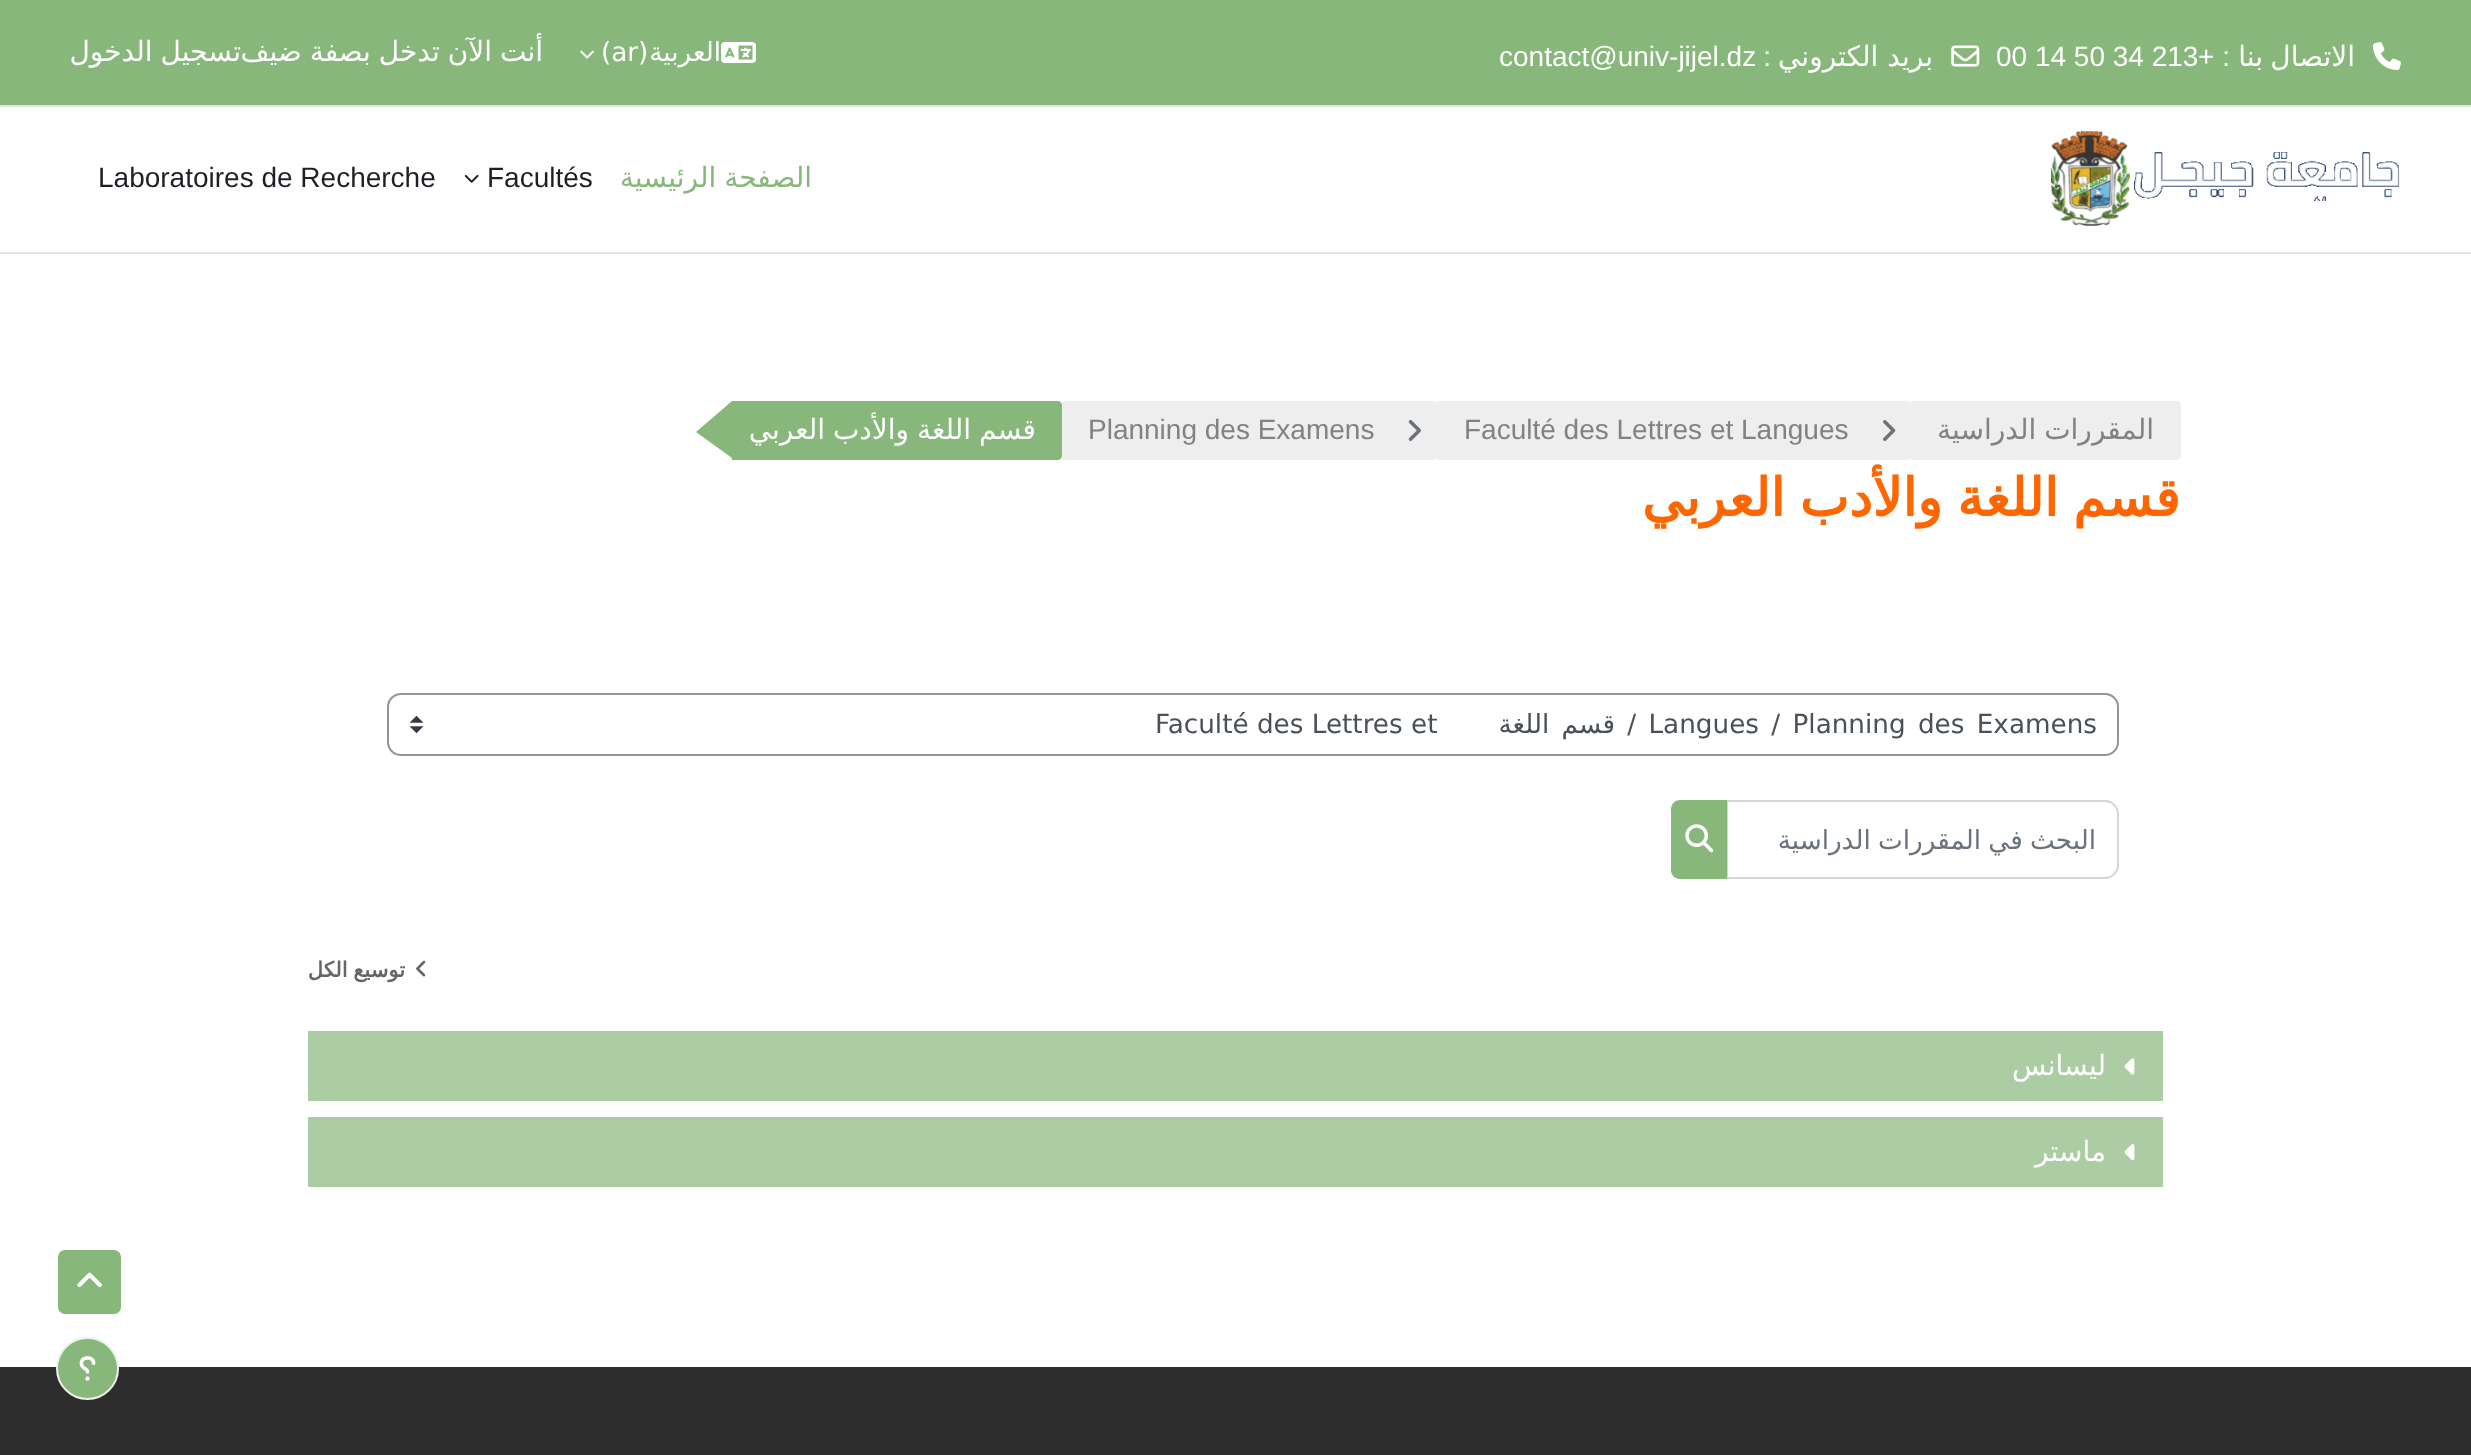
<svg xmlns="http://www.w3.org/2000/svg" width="2471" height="1455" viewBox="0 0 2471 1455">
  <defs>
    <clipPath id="clip1"><rect x="1643" y="460" width="538" height="91"/></clipPath>
    <clipPath id="clip2"><rect x="1748" y="824" width="349" height="32"/></clipPath>
  </defs>
  <rect width="100%" height="100%" fill="#ffffff"/>
  <rect x="0" y="0" width="2471" height="105" fill="#88b77b"/>
  <rect x="0" y="105" width="2471" height="2" fill="#e8e3e3"/>
  <image x="2373" y="42" width="28" height="28" href="img1.png"/>
  <text x="2355" y="66" font-family="DejaVu Sans" font-size="28" direction="rtl" fill="#ffffff">الاتصال</text>
  <text x="2263" y="66" font-family="DejaVu Sans" font-size="28" direction="rtl" fill="#ffffff">بنا</text>
  <text x="2230" y="66" font-family="Liberation Sans" font-size="28" direction="rtl" fill="#ffffff">: +</text>
  <text x="1996" y="66" font-family="Liberation Sans" font-size="28" fill="#ffffff">00 14 50 34 213</text>
  <image x="1951" y="45" width="29" height="22" href="img2.png"/>
  <text x="1933" y="66" font-family="DejaVu Sans" font-size="28" direction="rtl" fill="#ffffff">بريد الكتروني</text>
  <text x="1771" y="66" font-family="Liberation Sans" font-size="28" direction="rtl" fill="#ffffff">:</text>
  <text x="1499" y="66" font-family="Liberation Sans" font-size="28" fill="#ffffff">contact@univ-jijel.dz</text>
  <image x="721" y="42" width="35" height="21" href="img3.png"/>
  <text x="721" y="61" font-family="DejaVu Sans" font-size="26.25" direction="rtl" fill="#ffffff">العربية</text>
  <text x="601" y="61" font-family="DejaVu Sans" font-size="26.25" fill="#ffffff">(ar)</text>
  <image x="580" y="50" width="14" height="9" href="img4.png"/>
  <text x="543" y="61" word-spacing="-1" font-family="DejaVu Sans" font-size="28" direction="rtl" fill="#ffffff">أنت الآن تدخل بصفة ضيف</text>
  <text x="241" y="61" word-spacing="-1" font-family="DejaVu Sans" font-size="28" direction="rtl" fill="#ffffff">تسجيل الدخول</text>
  <rect x="0" y="252" width="2471" height="2" fill="#e8e3e3"/>
  <image x="2051" y="131" width="349" height="95" href="img5.png"/>
  <text x="812" y="187" word-spacing="-1" font-family="DejaVu Sans" font-size="28" direction="rtl" fill="#88b77b">الصفحة الرئيسية</text>
  <text x="487" y="187" font-family="Liberation Sans" font-size="28" fill="#1d2125">Facultés</text>
  <image x="464" y="174" width="15" height="9" href="img6.png"/>
  <text x="98" y="187" font-family="Liberation Sans" font-size="28" fill="#1d2125">Laboratoires de Recherche</text>
  <path d="M1911 401H2177C2179 401 2181 403 2181 405V456C2181 458 2179 460 2177 460H1911Z" fill="#eeeeee"/>
  <text x="2154" y="439" word-spacing="-1" font-family="DejaVu Sans" font-size="28" direction="rtl" fill="#828282">المقررات الدراسية</text>
  <path d="M1437 401H1907C1909 401 1911 403 1911 405V456C1911 458 1909 460 1907 460H1437Z" fill="#eeeeee"/>
  <image x="1883" y="420" width="13" height="21" href="img7.png"/>
  <text x="1464" y="439" font-family="Liberation Sans" font-size="28" fill="#828282">Faculté des Lettres et Langues</text>
  <path d="M1062 401H1433C1435 401 1437 403 1437 405V456C1437 458 1435 460 1433 460H1062Z" fill="#eeeeee"/>
  <image x="1408" y="420" width="13" height="21" href="img8.png"/>
  <text x="1088" y="439" font-family="Liberation Sans" font-size="28" fill="#828282">Planning des Examens</text>
  <path d="M732 401H1058C1060 401 1062 403 1062 405V456C1062 458 1060 460 1058 460H732Z" fill="#88b77b"/>
  <text x="1036" y="439" word-spacing="-1" font-family="DejaVu Sans" font-size="28" direction="rtl" fill="#ffffff">قسم اللغة والأدب العربي</text>
  <path d="M732 401V458L696 432Z" fill="#88b77b"/>
  <g clip-path="url(#clip1)">
    <text x="2180" y="516" word-spacing="-2" font-family="DejaVu Sans" font-size="52.5" font-weight="bold" direction="rtl" fill="#ff6600">قسم اللغة والأدب العربي</text>
  </g>
  <image x="410" y="716" width="14" height="17" href="img9.png"/>
  <rect x="388" y="694" width="1730" height="61" rx="13" fill="none" stroke="#8f959e" stroke-width="2"/>
  <text x="2097" y="733" word-spacing="4" font-family="DejaVu Sans" font-size="26.25" direction="rtl" fill="#495057">Langues / Planning des Examens / قسم اللغة</text>
  <text x="1155" y="733" font-family="DejaVu Sans" font-size="26.25" fill="#495057">Faculté des Lettres et</text>
  <path d="M1727 801H2105C2112 801 2118 807 2118 814V865C2118 872 2112 878 2105 878H1727Z" fill="none" stroke="#d5d5d5" stroke-width="2"/>
  <g clip-path="url(#clip2)">
    <text x="2096" y="849" word-spacing="-1" font-family="DejaVu Sans" font-size="26.25" direction="rtl" fill="#6a737b">البحث في المقررات الدراسية</text>
  </g>
  <path d="M1680 800H1727V879H1680C1675 879 1671 875 1671 870V809C1671 804 1675 800 1680 800Z" fill="#88b77b"/>
  <image x="1685" y="824" width="29" height="29" href="img10.png"/>
  <image x="416" y="960" width="10" height="17" href="img11.png"/>
  <text x="405" y="977" word-spacing="-1" font-family="DejaVu Sans" font-size="21" font-weight="bold" direction="rtl" fill="#656565">توسيع الكل</text>
  <rect x="308" y="1031" width="1855" height="70" fill="#accda3"/>
  <image x="2124" y="1058" width="11" height="17" href="img12.png"/>
  <text x="2106" y="1075" font-family="DejaVu Sans" font-size="28" direction="rtl" fill="#ffffff">ليسانس</text>
  <rect x="308" y="1117" width="1855" height="70" fill="#accda3"/>
  <image x="2124" y="1144" width="11" height="17" href="img13.png"/>
  <text x="2106" y="1161" font-family="DejaVu Sans" font-size="28" direction="rtl" fill="#ffffff">ماستر</text>
  <rect x="57" y="1249" width="65" height="66" rx="8" fill="#88b77b" stroke="#ffffff" stroke-width="2"/>
  <image x="77" y="1272" width="25" height="16" href="img14.png"/>
  <rect x="0" y="1367" width="2471" height="88" fill="#2d2d2d"/>
  <circle cx="87.5" cy="1368.5" r="30.5" fill="#88b77b" stroke="#eeeeee" stroke-width="2"/>
  <image x="79" y="1356" width="17" height="25" href="img15.png"/>
</svg>
